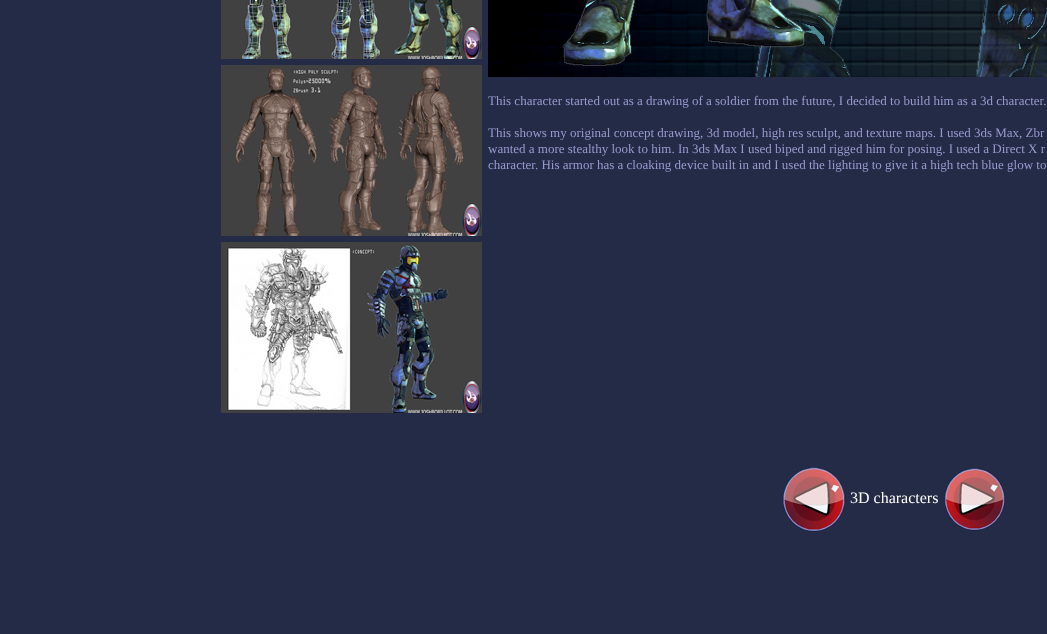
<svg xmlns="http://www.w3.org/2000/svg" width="1047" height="634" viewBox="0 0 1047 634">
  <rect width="100%" height="100%" fill="#242b47"/>
  <image x="221" y="0" width="261" height="59" href="img1.png"/>
  <image x="221" y="65" width="261" height="171" href="img2.png"/>
  <image x="488" y="0" width="559" height="77" href="img3.png"/>
  <text x="488" y="105" font-family="Liberation Serif" font-size="13" fill="#9999cc">This character started out as a drawing of a soldier from the future, I decided to build him as a 3d character.</text>
  <text x="488" y="137" font-family="Liberation Serif" font-size="13" fill="#9999cc">This shows my original concept drawing, 3d model, high res sculpt, and texture maps. I used 3ds Max, Zbr</text>
  <text x="488" y="153" font-family="Liberation Serif" font-size="13" fill="#9999cc">wanted a more stealthy look to him. In 3ds Max I used biped and rigged him for posing. I used a Direct X r</text>
  <text x="488" y="169" font-family="Liberation Serif" font-size="13" fill="#9999cc">character. His armor has a cloaking device built in and I used the lighting to give it a high tech blue glow to</text>
  <image x="221" y="242" width="261" height="171" href="img4.png"/>
  <image x="782" y="467" width="64" height="65" href="img5.png"/>
  <text x="850" y="503" font-family="Liberation Serif" font-size="16" fill="#ffffff">3D characters</text>
  <image x="943" y="467" width="63" height="64" href="img6.png"/>
</svg>
